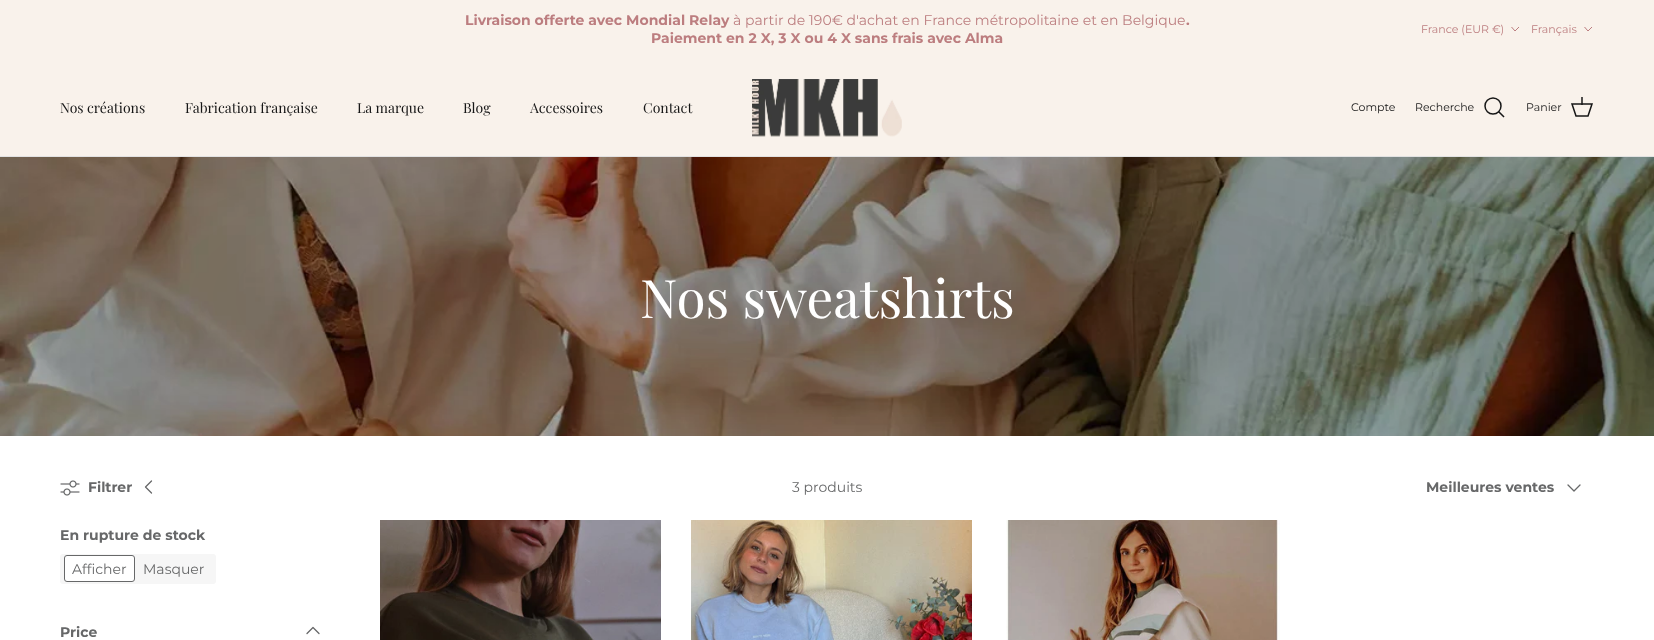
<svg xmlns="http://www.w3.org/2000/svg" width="1654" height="640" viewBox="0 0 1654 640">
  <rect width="100%" height="100%" fill="#ffffff"/>
  <rect x="0" y="0" width="1654" height="156" fill="#f9f2eb"/>
  <text x="465" y="25" font-family="Montserrat" font-size="14" font-weight="bold" fill="#bc7d7f">Livraison offerte avec Mondial Relay</text>
  <text x="733" y="25" font-family="Montserrat" font-size="14" fill="#bc7d7f">à partir de 190€ d'achat en France métropolitaine et en Belgique</text>
  <text x="1186" y="25" font-family="Montserrat" font-size="14" font-weight="bold" fill="#bc7d7f">.</text>
  <text x="651" y="43" font-family="Montserrat" font-size="14" font-weight="bold" fill="#bc7d7f">Paiement en 2 X, 3 X ou 4 X sans frais avec Alma</text>
  <text x="1421" y="33" font-family="Montserrat" font-size="11" fill="#bc7d7f">France (EUR €)</text>
  <path d="M1519 27L1515 31L1511.5 27" fill="none" stroke="#bc7d7f"/>
  <text x="1531" y="33" font-family="Montserrat" font-size="11" fill="#bc7d7f">Français</text>
  <path d="M1592 27L1588 31L1584.5 27" fill="none" stroke="#bc7d7f"/>
  <rect x="0" y="156" width="1654" height="1" fill="#e2e2e2"/>
  <text x="60" y="113" font-family="Playfair Display" font-size="14" fill="#171717">Nos créations</text>
  <text x="185" y="113" font-family="Playfair Display" font-size="14" fill="#171717">Fabrication française</text>
  <text x="357" y="113" font-family="Playfair Display" font-size="14" fill="#171717">La marque</text>
  <text x="463" y="113" font-family="Playfair Display" font-size="14" fill="#171717">Blog</text>
  <text x="530" y="113" font-family="Playfair Display" font-size="14" fill="#171717">Accessoires</text>
  <text x="643" y="113" font-family="Playfair Display" font-size="14" fill="#171717">Contact</text>
  <image x="752" y="79" width="150" height="58" href="img1.png"/>
  <text x="1351" y="111" font-family="Montserrat" font-size="11" fill="#171717">Compte</text>
  <text x="1415" y="111" font-family="Montserrat" font-size="11" fill="#171717">Recherche</text>
  <circle cx="1493" cy="106" r="8" fill="none" stroke="#171717" stroke-width="1.5"/>
  <path d="M1499 112L1503.5 116.5" fill="none" stroke="#171717" stroke-width="1.5" stroke-linecap="square"/>
  <text x="1526" y="111" font-family="Montserrat" font-size="11" fill="#171717">Panier</text>
  <path d="M1572 104H1592L1588 116H1576Z" fill="none" stroke="#171717" stroke-width="1.5"/>
  <rect x="1581" y="97" width="2" height="8" fill="#171717" fill-opacity="0.75"/>
  <image x="0" y="157" width="1654" height="279" href="img2.png"/>
  <text x="640" y="318" font-family="Playfair Display" font-size="53" fill="#ffffff">Nos sweatshirts</text>
  <image x="60" y="480" width="20" height="16" href="img3.png"/>
  <text x="88" y="492" font-family="Montserrat" font-size="14" font-weight="bold" fill="#676869">Filtrer</text>
  <path d="M151.5 481L145.5 487L151.5 493" fill="none" stroke="#676869" stroke-width="1.3" stroke-linecap="round" stroke-linejoin="round"/>
  <text x="792" y="492" font-family="Montserrat" font-size="14" fill="#676869">3 produits</text>
  <text x="1426" y="492" font-family="Montserrat" font-size="14" font-weight="bold" fill="#676869">Meilleures ventes</text>
  <path d="M1568 485L1574 491L1580 485" fill="none" stroke="#676869" stroke-width="1.3" stroke-linecap="round" stroke-linejoin="round"/>
  <text x="60" y="540" font-family="Montserrat" font-size="14" font-weight="bold" fill="#676869">En rupture de stock</text>
  <rect x="60" y="554" width="156" height="30" rx="3" fill="#f6f6f6"/>
  <rect x="64.5" y="555.5" width="70" height="26" rx="2.5" fill="#ffffff" stroke="#676869"/>
  <text x="72" y="574" font-family="Montserrat" font-size="14" fill="#676869">Afficher</text>
  <text x="143" y="574" font-family="Montserrat" font-size="14" fill="#676869">Masquer</text>
  <text x="60" y="637" font-family="Montserrat" font-size="14" font-weight="bold" fill="#676869">Price</text>
  <path d="M319 633.5L313 627.5L307 633.5" fill="none" stroke="#676869" stroke-width="1.3" stroke-linecap="round" stroke-linejoin="round"/>
  <image x="380" y="520" width="281" height="120" href="img4.png"/>
  <image x="691" y="520" width="281" height="120" href="img5.png"/>
  <image x="1006" y="520" width="274" height="120" href="img6.png"/>
</svg>
